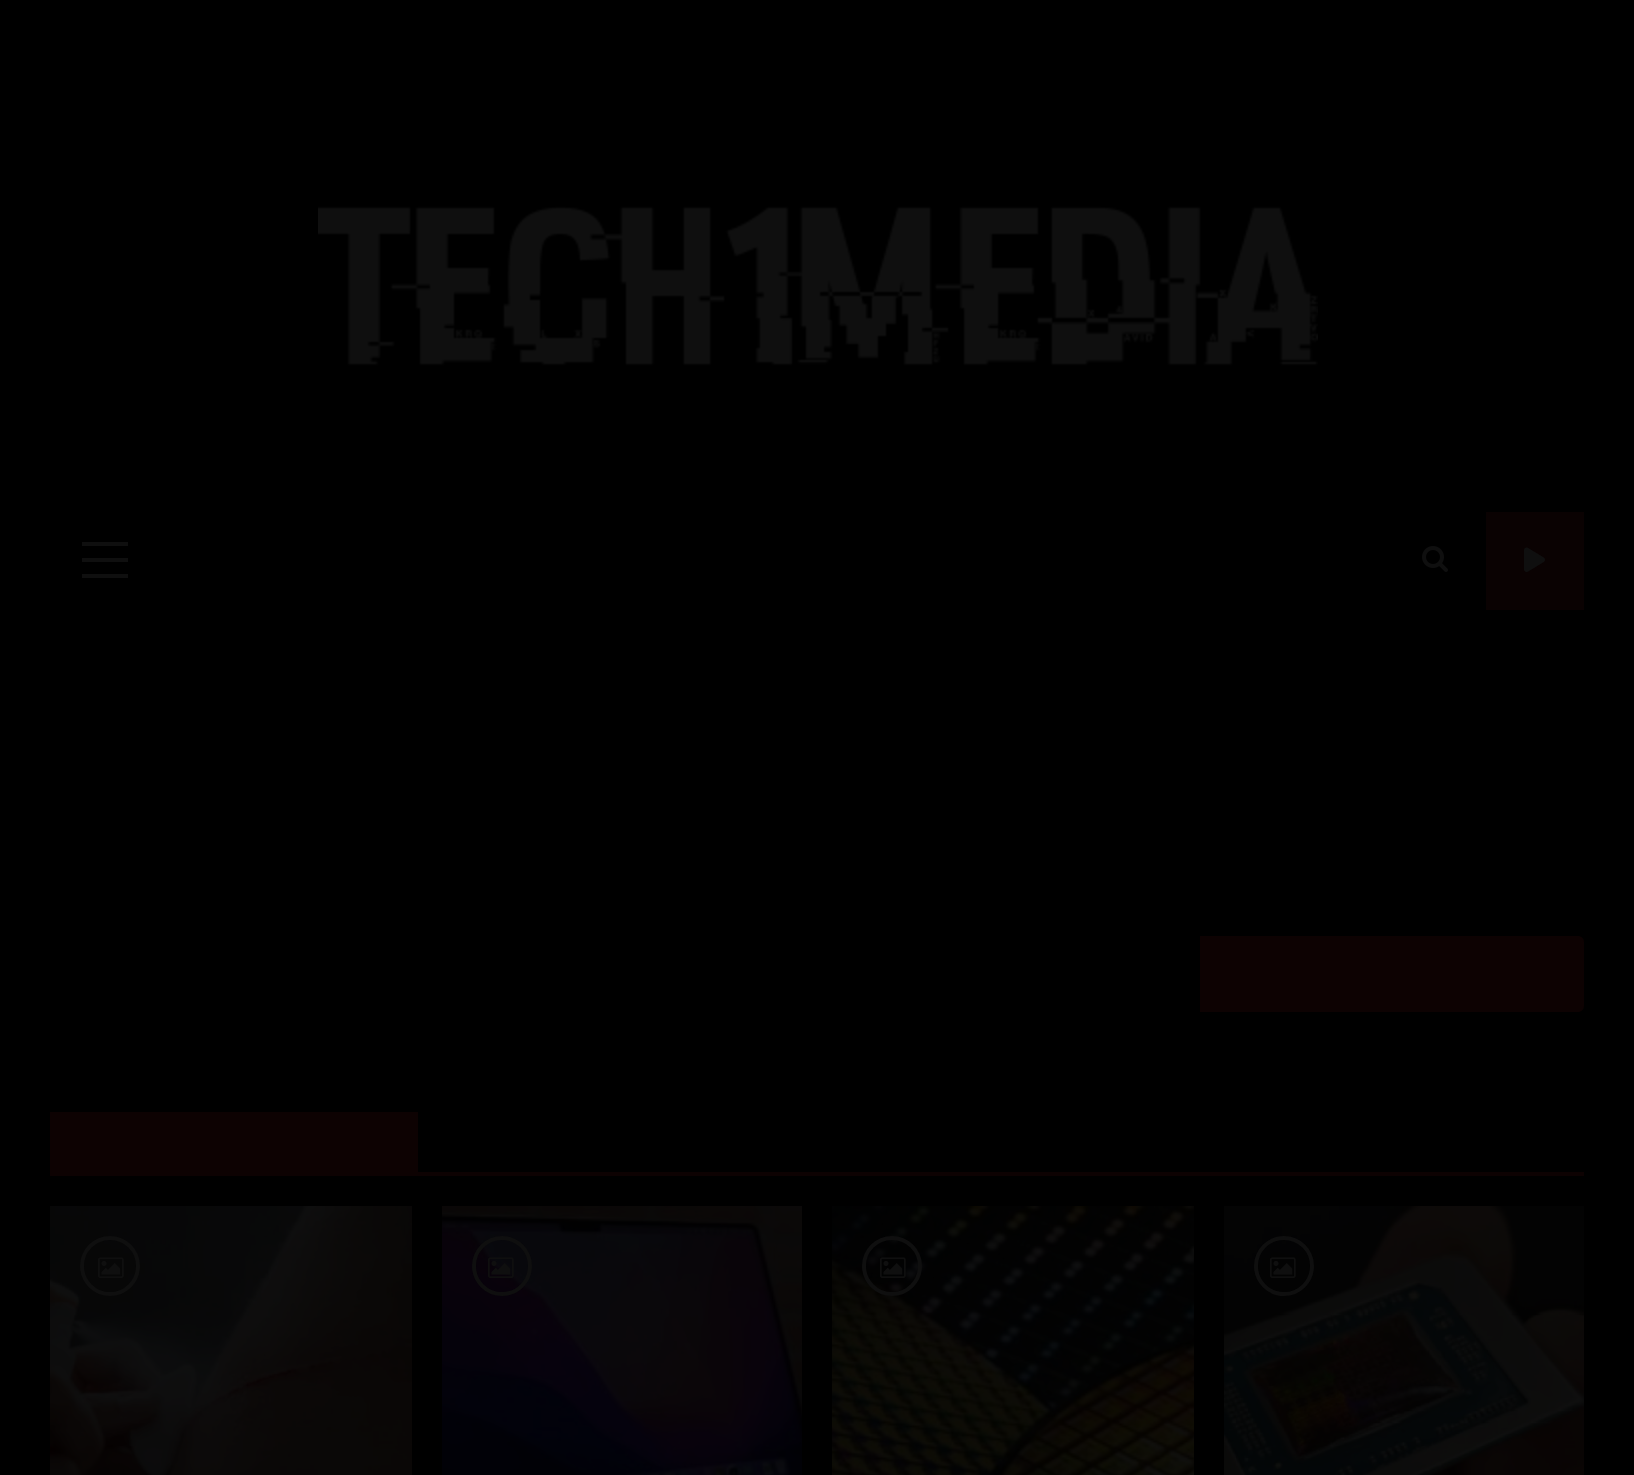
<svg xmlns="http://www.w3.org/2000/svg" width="1634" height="1475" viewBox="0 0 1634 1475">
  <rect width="100%" height="100%" fill="#000000"/>
  <image x="318" y="205" width="1000" height="162" href="img1.png"/>
  <rect x="82" y="558" width="46" height="4" fill="#0f0f0f"/>
  <rect x="82" y="542" width="46" height="4" fill="#0f0f0f"/>
  <rect x="82" y="574" width="46" height="4" fill="#0f0f0f"/>
  <image x="1422" y="546" width="26" height="26" href="img2.png"/>
  <rect x="1486" y="512" width="98" height="98" fill="#0a0202"/>
  <image x="1524" y="547" width="21" height="25" href="img3.png"/>
  <path d="M1200 936H1578C1581.5 936 1584 938.5 1584 942V1006C1584 1009.5 1581.5 1012 1578 1012H1200Z" fill="#0d0202"/>
  <rect x="50" y="1172" width="1534" height="4" fill="#0d0202"/>
  <rect x="50" y="1112" width="368" height="60" fill="#0d0202"/>
  <image x="50" y="1206" width="362" height="269" href="img4.png"/>
  <circle cx="110" cy="1266" r="28" fill="none" stroke="#0f0f0f" stroke-width="4"/>
  <image x="98" y="1257" width="26" height="21" href="img5.png"/>
  <image x="442" y="1206" width="360" height="269" href="img6.png"/>
  <circle cx="502" cy="1266" r="28" fill="none" stroke="#0f0f0f" stroke-width="4"/>
  <image x="488" y="1257" width="26" height="21" href="img7.png"/>
  <image x="832" y="1206" width="362" height="269" href="img8.png"/>
  <circle cx="892" cy="1266" r="28" fill="none" stroke="#0f0f0f" stroke-width="4"/>
  <image x="880" y="1257" width="26" height="21" href="img9.png"/>
  <image x="1224" y="1206" width="360" height="269" href="img10.png"/>
  <circle cx="1284" cy="1266" r="28" fill="none" stroke="#0f0f0f" stroke-width="4"/>
  <image x="1270" y="1257" width="26" height="21" href="img11.png"/>
</svg>
